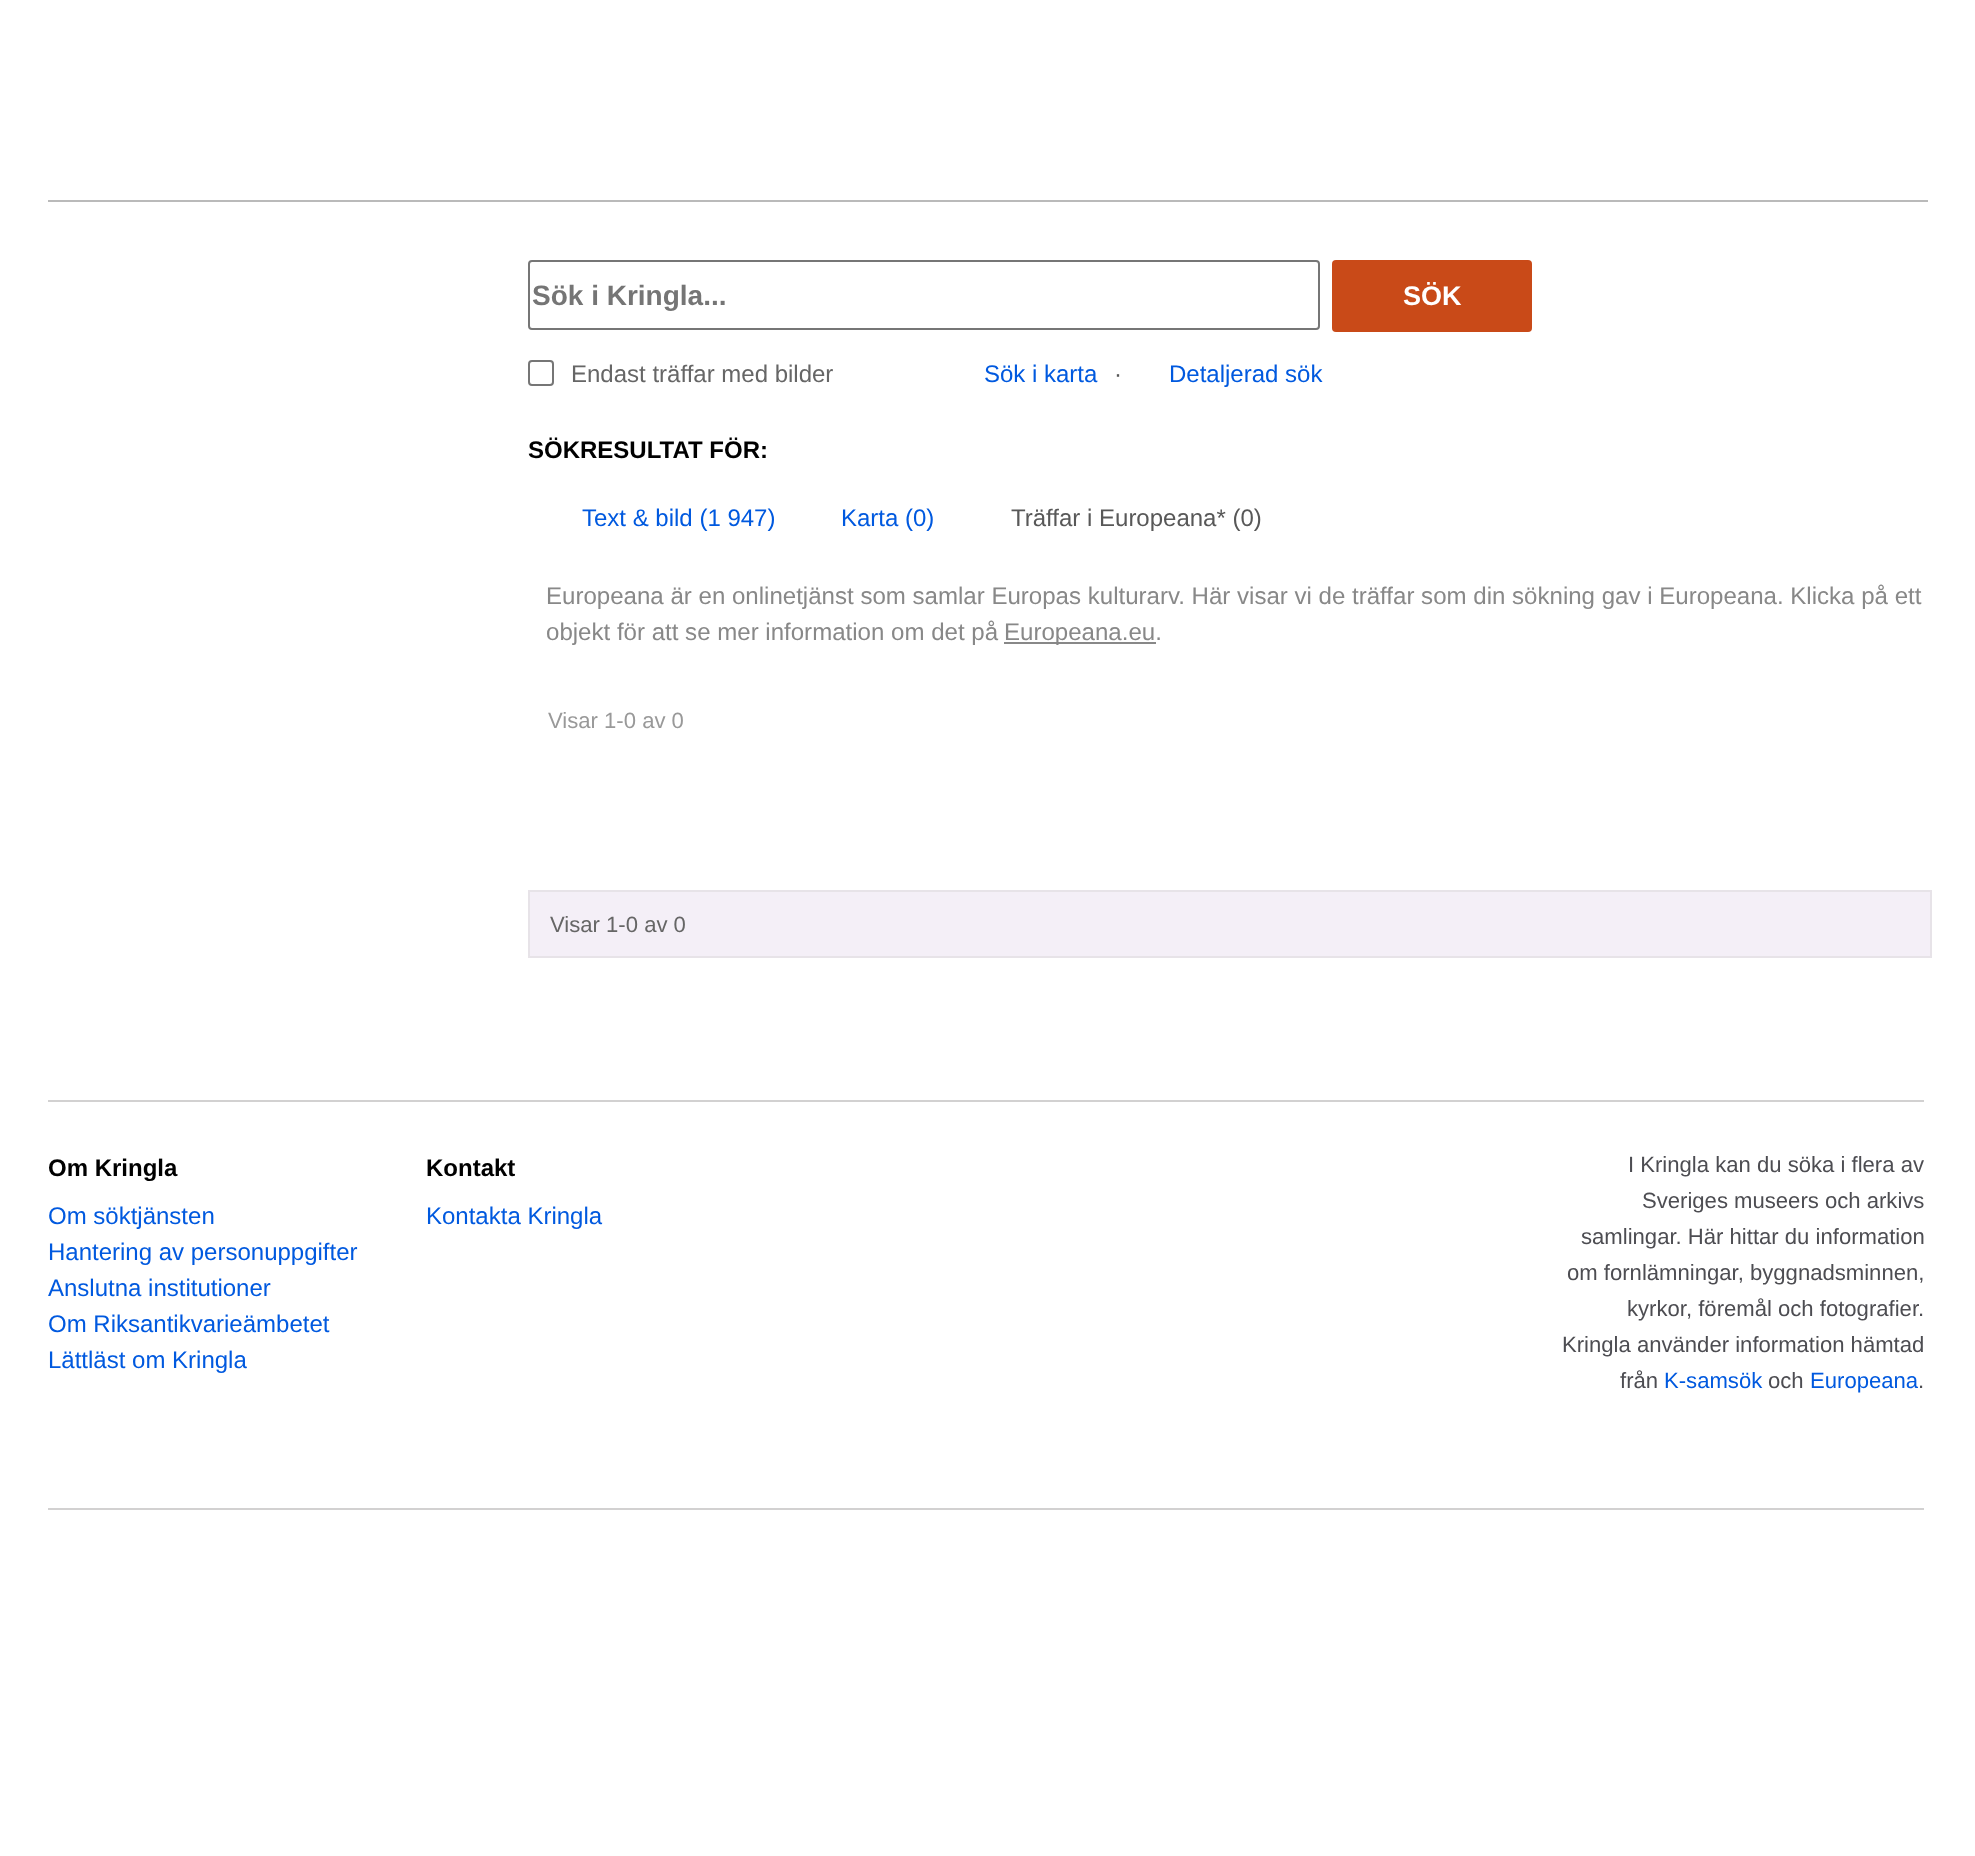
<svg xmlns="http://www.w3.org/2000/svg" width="1975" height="1856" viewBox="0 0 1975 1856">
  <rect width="100%" height="100%" fill="#ffffff"/>
  <rect x="48" y="200" width="1880" height="2" fill="#bababa"/>
  <rect x="529" y="261" width="790" height="68" rx="3" fill="none" stroke="#767676" stroke-width="2"/>
  <text x="532" y="305" font-family="Liberation Sans" font-size="28" font-weight="bold" fill="#757575">Sök i Kringla...</text>
  <rect x="1332" y="260" width="200" height="72" rx="4" fill="#c94a18"/>
  <text x="1403" y="305" font-family="Liberation Sans" font-size="27" font-weight="bold" fill="#ffffff">SÖK</text>
  <rect x="529" y="361" width="24" height="24" rx="3" fill="none" stroke="#767676" stroke-width="2"/>
  <text x="571" y="382" font-family="Liberation Sans" font-size="24" fill="#666666">Endast träffar med bilder</text>
  <text x="984" y="382" font-family="Liberation Sans" font-size="24" fill="#0059df">Sök i karta</text>
  <text x="1114" y="382" font-family="Liberation Sans" font-size="24" fill="#585858">·</text>
  <text x="1169" y="382" font-family="Liberation Sans" font-size="24" fill="#0059df">Detaljerad sök</text>
  <text x="528" y="458" font-family="Liberation Sans" font-size="24" font-weight="bold" fill="#000000">SÖKRESULTAT FÖR:</text>
  <text x="582" y="526" font-family="Liberation Sans" font-size="24" fill="#0059df">Text &amp; bild (1 947)</text>
  <text x="841" y="526" font-family="Liberation Sans" font-size="24" fill="#0059df">Karta (0)</text>
  <text x="1011" y="526" font-family="Liberation Sans" font-size="24" fill="#585858">Träffar i Europeana* (0)</text>
  <text x="546" y="604" font-family="Liberation Sans" font-size="24.07" fill="#888888">Europeana är en onlinetjänst som samlar Europas kulturarv. Här visar vi de träffar som din sökning gav i Europeana. Klicka på ett</text>
  <text x="546" y="640" font-family="Liberation Sans" font-size="24.07" fill="#888888">objekt för att se mer information om det på</text>
  <rect x="1004" y="642" width="152" height="2" fill="#888888"/>
  <text x="1004" y="640" font-family="Liberation Sans" font-size="24.07" fill="#888888">Europeana.eu.</text>
  <text x="548" y="728" font-family="Liberation Sans" font-size="22.1" fill="#999999">Visar 1-0 av 0</text>
  <rect x="529" y="891" width="1402" height="66" fill="#f4eff7" stroke="#e7e3e8" stroke-width="2"/>
  <text x="550" y="932" font-family="Liberation Sans" font-size="22.1" fill="#666666">Visar 1-0 av 0</text>
  <rect x="48" y="1100" width="1876" height="2" fill="#d2d1d1"/>
  <rect x="48" y="1508" width="1876" height="2" fill="#d2d1d1"/>
  <text x="48" y="1176" font-family="Liberation Sans" font-size="24" font-weight="bold" fill="#000000">Om Kringla</text>
  <text x="48" y="1224" font-family="Liberation Sans" font-size="24" fill="#0059df">Om söktjänsten</text>
  <text x="48" y="1260" font-family="Liberation Sans" font-size="24" fill="#0059df">Hantering av personuppgifter</text>
  <text x="48" y="1296" font-family="Liberation Sans" font-size="24" fill="#0059df">Anslutna institutioner</text>
  <text x="48" y="1332" font-family="Liberation Sans" font-size="24" fill="#0059df">Om Riksantikvarieämbetet</text>
  <text x="48" y="1368" font-family="Liberation Sans" font-size="24" fill="#0059df">Lättläst om Kringla</text>
  <text x="426" y="1176" font-family="Liberation Sans" font-size="24" font-weight="bold" fill="#000000">Kontakt</text>
  <text x="426" y="1224" font-family="Liberation Sans" font-size="24" fill="#0059df">Kontakta Kringla</text>
  <text x="1628" y="1172" font-family="Liberation Sans" font-size="22.1" fill="#4d4d52">I Kringla kan du söka i flera av</text>
  <text x="1642" y="1208" font-family="Liberation Sans" font-size="22.1" fill="#4d4d52">Sveriges museers och arkivs</text>
  <text x="1581" y="1244" font-family="Liberation Sans" font-size="22.1" fill="#4d4d52">samlingar. Här hittar du information</text>
  <text x="1567" y="1280" font-family="Liberation Sans" font-size="22.1" fill="#4d4d52">om fornlämningar, byggnadsminnen,</text>
  <text x="1627" y="1316" font-family="Liberation Sans" font-size="22.1" fill="#4d4d52">kyrkor, föremål och fotografier.</text>
  <text x="1562" y="1352" font-family="Liberation Sans" font-size="22.1" fill="#4d4d52">Kringla använder information hämtad</text>
  <text x="1620" y="1388" font-family="Liberation Sans" font-size="22.1" fill="#4d4d52">från</text>
  <text x="1664" y="1388" font-family="Liberation Sans" font-size="22.1" fill="#0059df">K-samsök</text>
  <text x="1768" y="1388" font-family="Liberation Sans" font-size="22.1" fill="#4d4d52">och</text>
  <text x="1810" y="1388" font-family="Liberation Sans" font-size="22.1" fill="#0059df">Europeana</text>
  <text x="1918" y="1388" font-family="Liberation Sans" font-size="22.1" fill="#4d4d52">.</text>
</svg>
